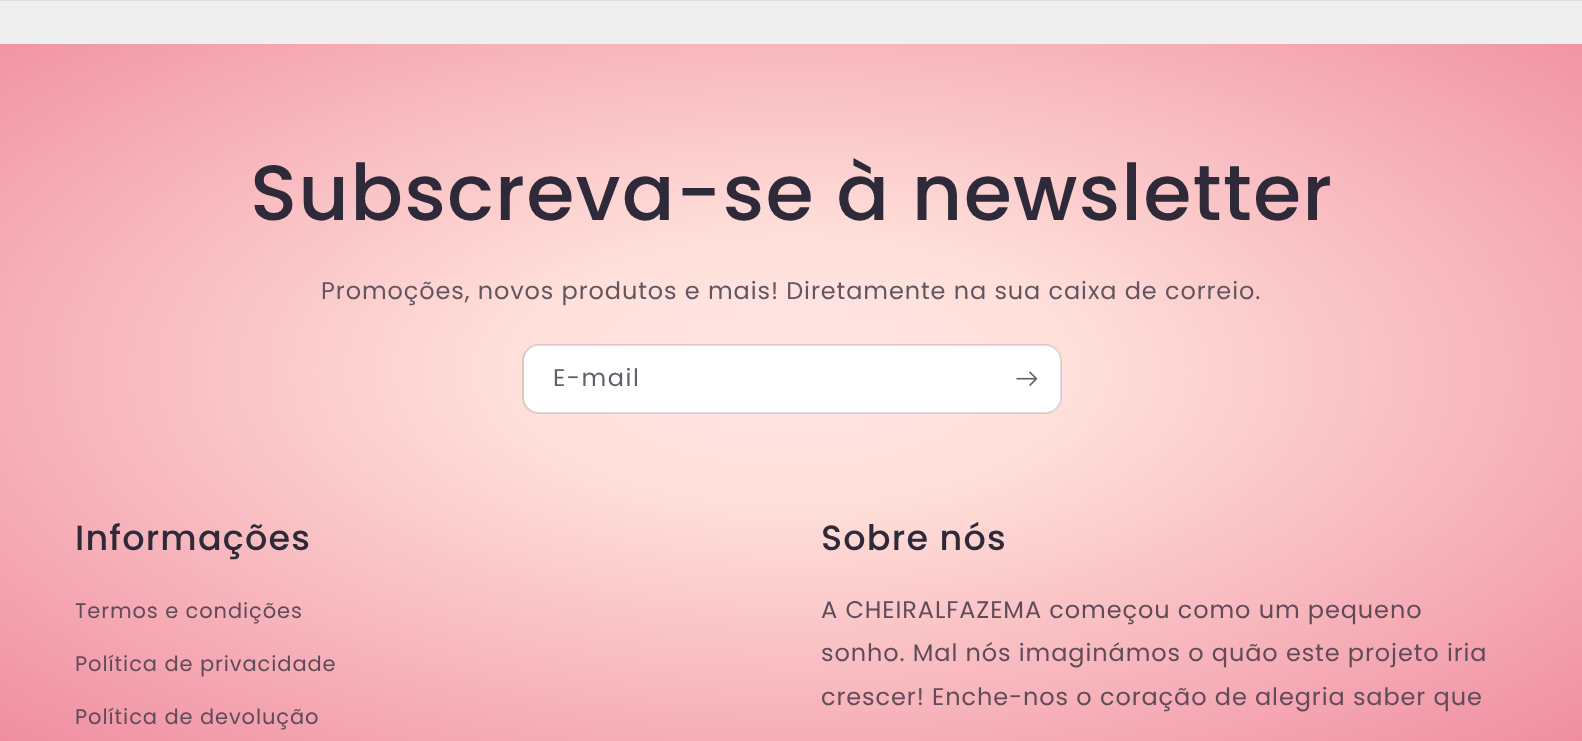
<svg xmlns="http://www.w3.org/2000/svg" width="1582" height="741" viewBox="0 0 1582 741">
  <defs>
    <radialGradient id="g1" gradientUnits="userSpaceOnUse" cx="0" cy="0" r="1" gradientTransform="matrix(1119 0 0 524 791 371)"><stop offset="0" stop-color="#ffe5e5"/><stop offset="0.25" stop-color="#ffe0da"/><stop offset="1" stop-color="#f08ea1"/></radialGradient>
  </defs>
  <rect width="100%" height="100%" fill="#efefef"/>
  <rect x="0" y="0" width="1582" height="1" fill="#e0dfe0"/>
  <rect x="0" y="44" width="1582" height="448" fill="url(#g1)"/>
  <text x="250" y="220" font-family="Poppins" font-size="78" font-weight="500" letter-spacing="1.2" fill="#2e2a39">Subscreva-se à newsletter</text>
  <text x="321" y="299" font-family="Poppins" font-size="24" letter-spacing="0.9" fill="#625661">Promoções, novos produtos e mais! Diretamente na sua caixa de correio.</text>
  <rect x="524" y="345" width="537" height="68" rx="15" fill="#ffffff"/>
  <rect x="523" y="345" width="538" height="68" rx="16" fill="none" stroke="#2e2a39" stroke-opacity="0.15" stroke-width="2"/>
  <text x="553" y="386" font-family="Poppins" font-size="24" letter-spacing="1.5" fill="#625f6b">E-mail</text>
  <image x="1016" y="371" width="22" height="15" href="img1.png"/>
  <rect x="0" y="492" width="1582" height="249" fill="url(#g1)"/>
  <text x="75" y="550" font-family="Poppins" font-size="35" font-weight="500" letter-spacing="1.2" fill="#2e2a39">Informações</text>
  <text x="75" y="618" font-family="Poppins" font-size="21" letter-spacing="0.9" fill="#604b59">Termos e condições</text>
  <text x="75" y="671" font-family="Poppins" font-size="21" letter-spacing="0.9" fill="#604b59">Política de privacidade</text>
  <text x="75" y="724" font-family="Poppins" font-size="21" letter-spacing="0.9" fill="#604b59">Política de devolução</text>
  <text x="821" y="550" font-family="Poppins" font-size="35" font-weight="500" letter-spacing="1.2" fill="#2e2a39">Sobre nós</text>
  <text x="821" y="618" font-family="Poppins" font-size="24" letter-spacing="0.9" fill="#604b59">A CHEIRALFAZEMA começou como um pequeno</text>
  <text x="821" y="661" font-family="Poppins" font-size="24" letter-spacing="0.9" fill="#604b59">sonho. Mal nós imaginámos o quão este projeto iria</text>
  <text x="821" y="705" font-family="Poppins" font-size="24" letter-spacing="0.9" fill="#604b59">crescer! Enche-nos o coração de alegria saber que</text>
</svg>
